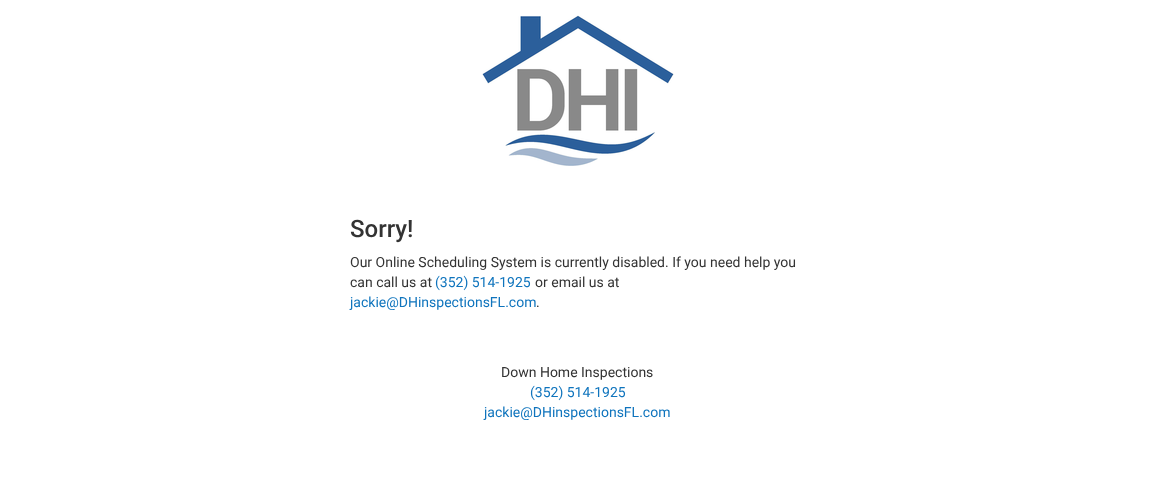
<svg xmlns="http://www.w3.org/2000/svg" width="1155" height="497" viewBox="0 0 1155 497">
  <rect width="100%" height="100%" fill="#ffffff"/>
  <image x="482" y="15" width="192" height="151" href="img1.png"/>
  <text x="350" y="237" font-family="Roboto" font-size="24" font-weight="500" fill="#333333">Sorry!</text>
  <text x="350" y="267" font-family="Roboto" font-size="14" fill="#333333">Our Online Scheduling System is currently disabled. If you need help you</text>
  <text x="350" y="287" font-family="Roboto" font-size="14" fill="#333333">can call us at</text>
  <text x="435" y="287" font-family="Roboto" font-size="14" fill="#0f74bd">(352) 514-1925</text>
  <text x="535" y="287" font-family="Roboto" font-size="14" fill="#333333">or email us at</text>
  <text x="350" y="307" font-family="Roboto" font-size="14" fill="#0f74bd">jackie@DHinspectionsFL.com</text>
  <text x="536" y="307" font-family="Roboto" font-size="14" fill="#333333">.</text>
  <text x="501" y="377" font-family="Roboto" font-size="14" fill="#333333">Down Home Inspections</text>
  <text x="530" y="397" font-family="Roboto" font-size="14" fill="#0f74bd">(352) 514-1925</text>
  <text x="484" y="417" font-family="Roboto" font-size="14" fill="#0f74bd">jackie@DHinspectionsFL.com</text>
</svg>
